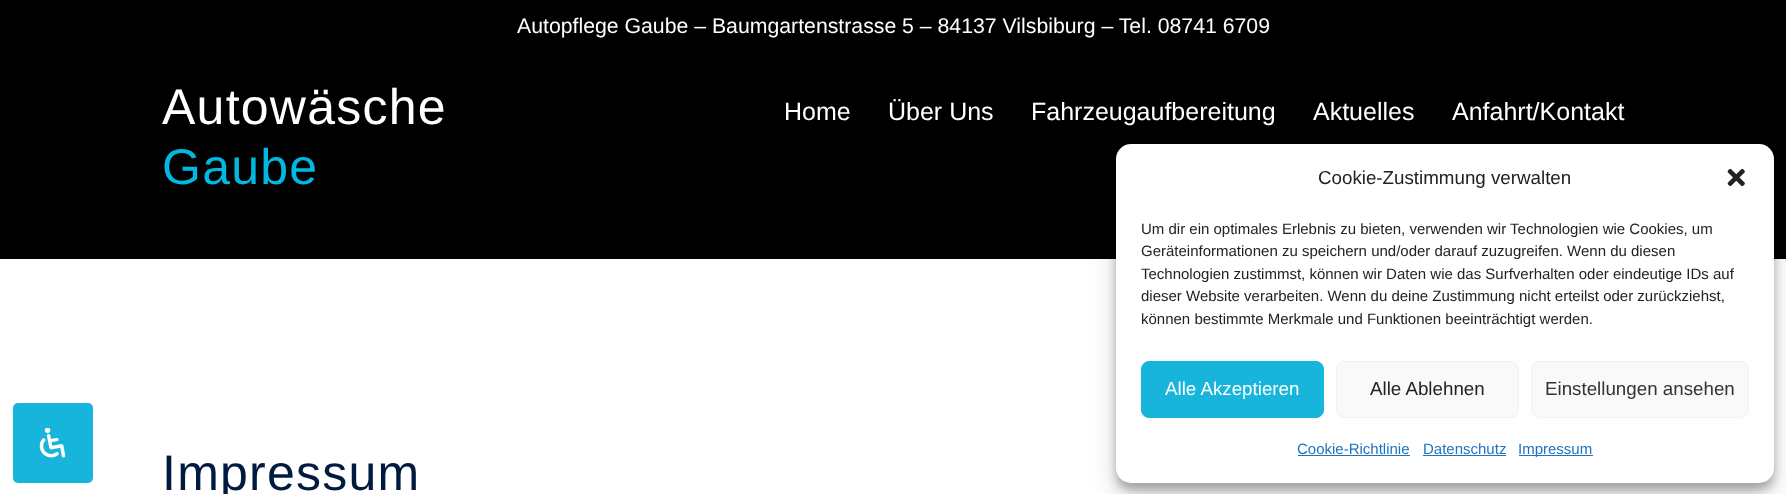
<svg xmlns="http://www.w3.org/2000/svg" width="1786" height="494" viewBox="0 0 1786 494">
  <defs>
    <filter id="blur1" x="-50%" y="-200%" width="200%" height="500%"><feGaussianBlur stdDeviation="4"/></filter>
    <filter id="blur2" x="-50%" y="-200%" width="200%" height="500%"><feGaussianBlur stdDeviation="12.5"/></filter>
  </defs>
  <rect width="100%" height="100%" fill="#ffffff"/>
  <rect x="0" y="0" width="1786" height="259" fill="#000000"/>
  <text x="517" y="33" font-family="Liberation Sans" font-size="21.25" fill="#ffffff">Autopflege Gaube – Baumgartenstrasse 5 – 84137 Vilsbiburg – Tel. 08741 6709</text>
  <text x="162" y="124" font-family="Liberation Sans" font-size="50" letter-spacing="1.25" fill="#ffffff">Autowäsche</text>
  <text x="162" y="184" font-family="Liberation Sans" font-size="50" letter-spacing="1.25" fill="#00b8e1">Gaube</text>
  <text x="784" y="120" font-family="Liberation Sans" font-size="25" fill="#ffffff">Home</text>
  <text x="888" y="120" font-family="Liberation Sans" font-size="25" fill="#ffffff">Über Uns</text>
  <text x="1031" y="120" font-family="Liberation Sans" font-size="25" fill="#ffffff">Fahrzeugaufbereitung</text>
  <text x="1313" y="120" font-family="Liberation Sans" font-size="25" fill="#ffffff">Aktuelles</text>
  <text x="1452" y="120" font-family="Liberation Sans" font-size="25" fill="#ffffff">Anfahrt/Kontakt</text>
  <text x="162" y="490" font-family="Liberation Sans" font-size="50" letter-spacing="1.25" fill="#011a3f">Impressum</text>
  <rect x="13" y="403" width="80" height="80" rx="5" fill="#17b4db"/>
  <image x="39" y="428" width="27" height="30" href="img1.png"/>
  <rect x="1116" y="151" width="658" height="339" rx="15" fill="#000000" fill-opacity="0.23" filter="url(#blur1)"/>
  <rect x="1116" y="156" width="658" height="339" rx="15" fill="#000000" fill-opacity="0.19" filter="url(#blur2)"/>
  <rect x="1116" y="144" width="658" height="339" rx="15" fill="#ffffff"/>
  <text x="1318" y="184" font-family="Liberation Sans" font-size="18.75" fill="#222222">Cookie-Zustimmung verwalten</text>
  <image x="1727" y="168" width="18" height="19" href="img2.png"/>
  <text x="1141" y="234" font-family="Liberation Sans" font-size="15" fill="#222222">Um dir ein optimales Erlebnis zu bieten, verwenden wir Technologien wie Cookies, um</text>
  <text x="1141" y="256" font-family="Liberation Sans" font-size="15" fill="#222222">Geräteinformationen zu speichern und/oder darauf zuzugreifen. Wenn du diesen</text>
  <text x="1141" y="279" font-family="Liberation Sans" font-size="15" fill="#222222">Technologien zustimmst, können wir Daten wie das Surfverhalten oder eindeutige IDs auf</text>
  <text x="1141" y="301" font-family="Liberation Sans" font-size="15" fill="#222222">dieser Website verarbeiten. Wenn du deine Zustimmung nicht erteilst oder zurückziehst,</text>
  <text x="1141" y="324" font-family="Liberation Sans" font-size="15" fill="#222222">können bestimmte Merkmale und Funktionen beeinträchtigt werden.</text>
  <rect x="1141.5" y="361.5" width="182" height="56" rx="7.5" fill="#17b4db" stroke="#17b4db"/>
  <text x="1165" y="395" font-family="Liberation Sans" font-size="18.75" fill="#ffffff">Alle Akzeptieren</text>
  <rect x="1336.5" y="361.5" width="182" height="56" rx="7.5" fill="#f9f9f9" stroke="#f2f2f2"/>
  <text x="1370" y="395" font-family="Liberation Sans" font-size="18.75" fill="#222222">Alle Ablehnen</text>
  <rect x="1531.5" y="361.5" width="217" height="56" rx="7.5" fill="#f9f9f9" stroke="#f2f2f2"/>
  <text x="1545" y="395" font-family="Liberation Sans" font-size="18.75" fill="#333333">Einstellungen ansehen</text>
  <text x="1297" y="454" font-family="Liberation Sans" font-size="15" fill="#1e73be">Cookie-Richtlinie</text>
  <rect x="1298" y="455" width="112" height="1" fill="#1e73be"/>
  <text x="1423" y="454" font-family="Liberation Sans" font-size="15" fill="#1e73be">Datenschutz</text>
  <rect x="1423" y="455" width="83" height="1" fill="#1e73be"/>
  <rect x="1519" y="455" width="74" height="1" fill="#1e73be"/>
  <text x="1518" y="454" font-family="Liberation Sans" font-size="15" fill="#1e73be">Impressum</text>
</svg>
